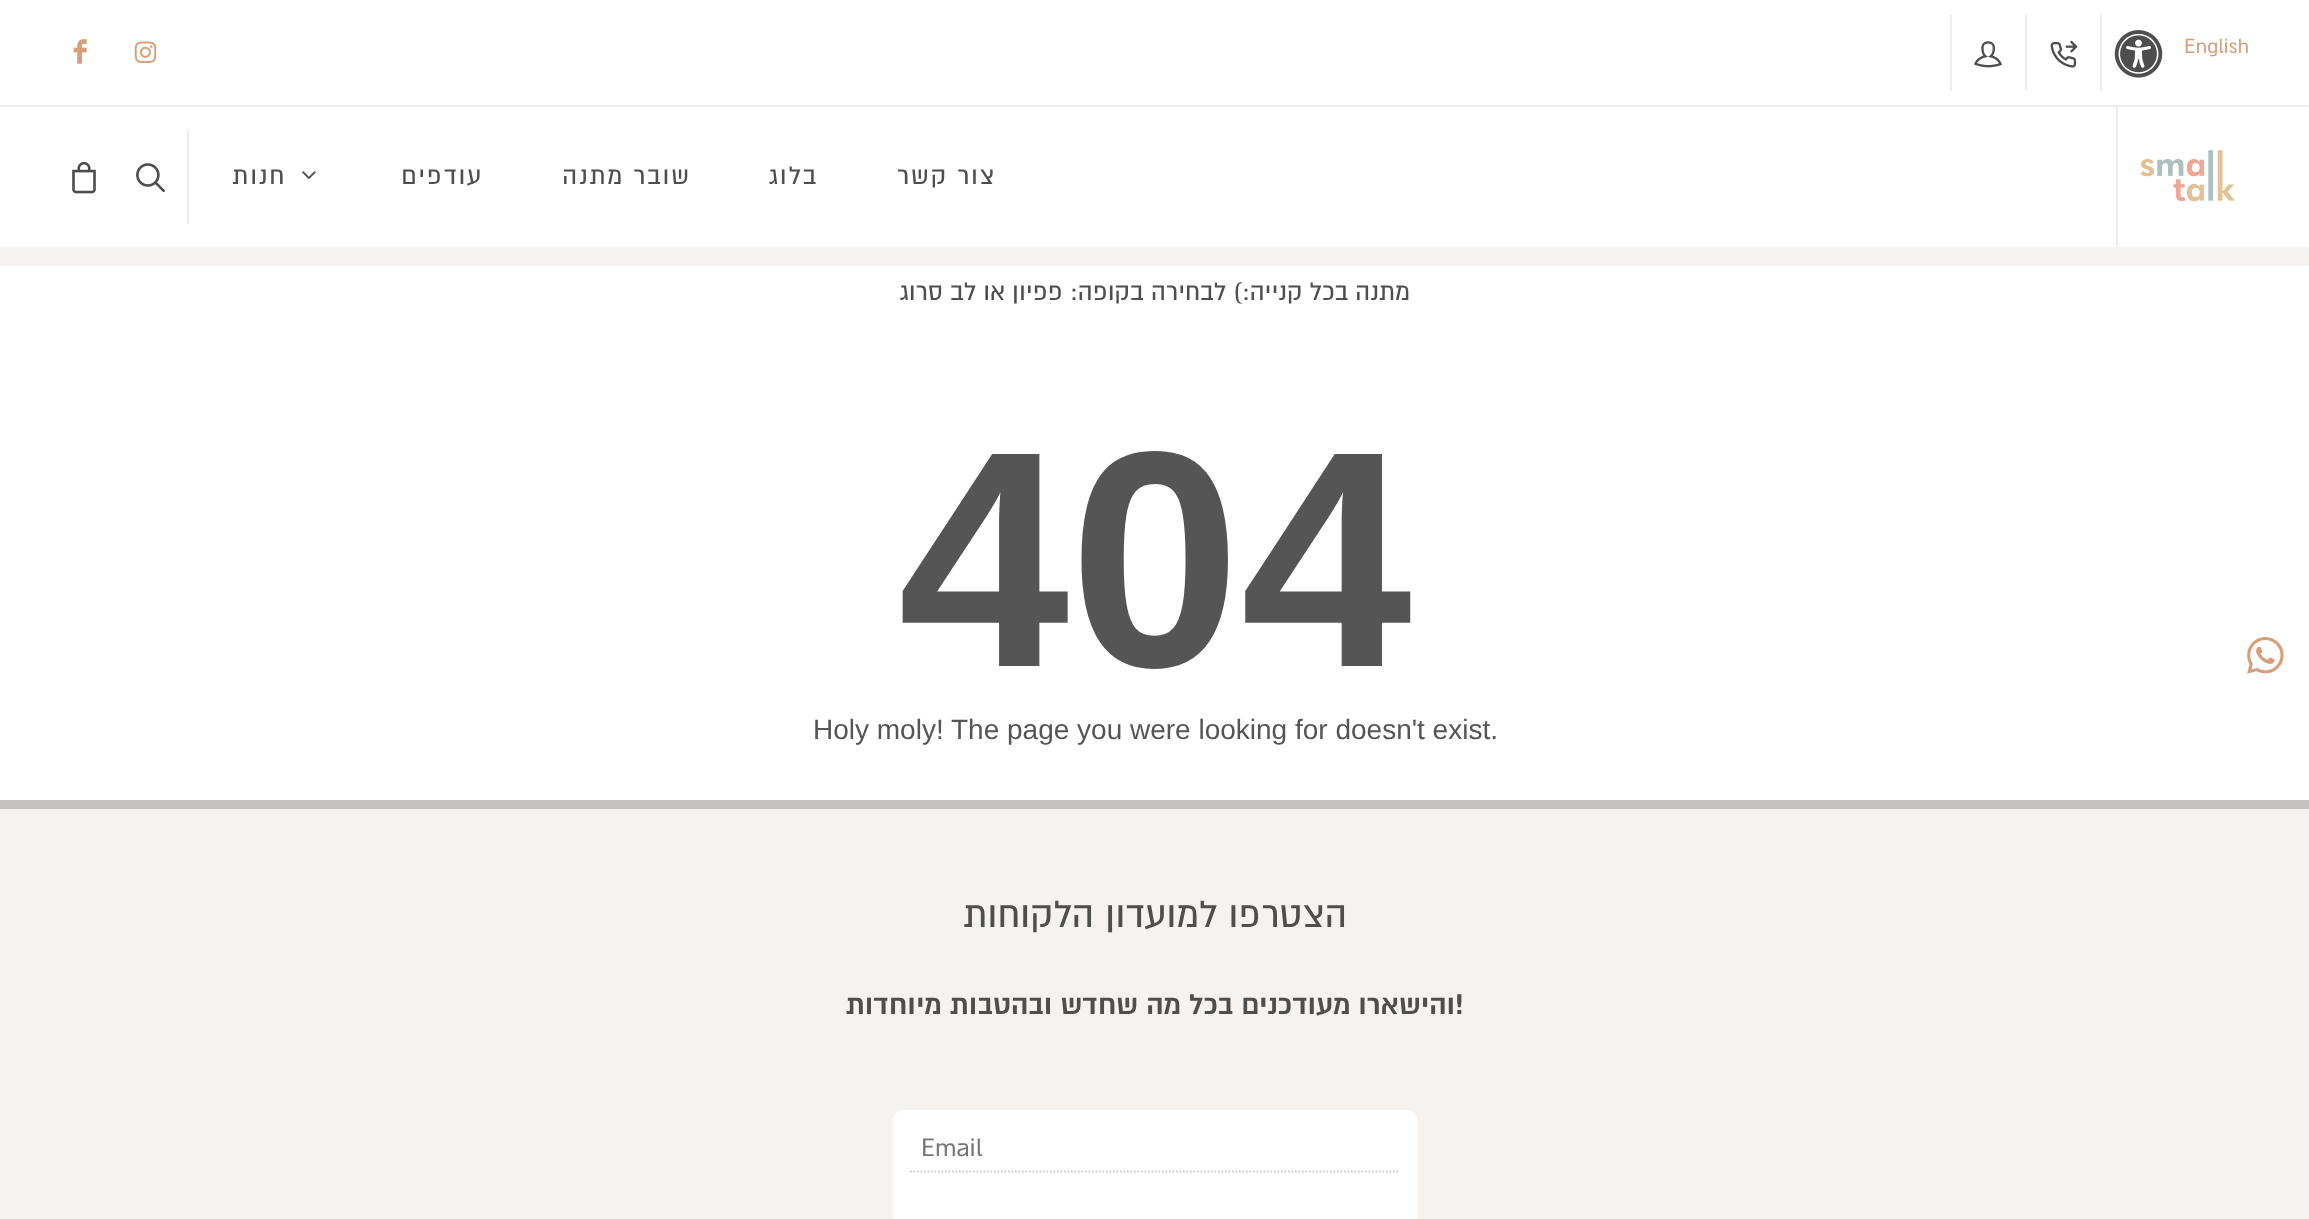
<svg xmlns="http://www.w3.org/2000/svg" width="2309" height="1219" viewBox="0 0 2309 1219">
  <rect width="100%" height="100%" fill="#ffffff"/>
  <rect x="0" y="105" width="2309" height="2" fill="#eeeeee"/>
  <text x="2184" y="53" font-family="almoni" font-size="23" fill="#d69e79">English</text>
  <rect x="2100" y="14" width="2" height="77" fill="#eeeeee"/>
  <image x="2114" y="30" width="49" height="48" href="img1.png"/>
  <rect x="2025" y="14" width="2" height="77" fill="#eeeeee"/>
  <image x="2050" y="40" width="28" height="28" href="img2.png"/>
  <rect x="1950" y="14" width="2" height="77" fill="#eeeeee"/>
  <image x="1974" y="41" width="28" height="27" href="img3.png"/>
  <image x="134" y="41" width="23" height="22" href="img4.png"/>
  <image x="73" y="39" width="14" height="25" href="img5.png"/>
  <rect x="2116" y="107" width="2" height="140" fill="#eeeeee"/>
  <image x="2140" y="150" width="96" height="52" href="img6.png"/>
  <rect x="187" y="130" width="2" height="94" fill="#eeeeee"/>
  <text x="996" y="184" font-family="almoni" font-size="28" letter-spacing="1.75" direction="rtl" fill="#4e4e4e">צור קשר</text>
  <text x="818" y="184" font-family="almoni" font-size="28" letter-spacing="1.75" direction="rtl" fill="#4e4e4e">בלוג</text>
  <text x="691" y="184" font-family="almoni" font-size="28" letter-spacing="1.75" direction="rtl" fill="#4e4e4e">שובר מתנה</text>
  <text x="483" y="184" font-family="almoni" font-size="28" letter-spacing="1.75" direction="rtl" fill="#4e4e4e">עודפים</text>
  <image x="302" y="171" width="14" height="9" href="img7.png"/>
  <text x="286" y="184" font-family="almoni" font-size="28" letter-spacing="1.75" direction="rtl" fill="#4e4e4e">חנות</text>
  <image x="136" y="163" width="29" height="30" href="img8.png"/>
  <image x="72" y="161" width="24" height="33" href="img9.png"/>
  <image x="2247" y="637" width="37" height="37" href="img10.png"/>
  <rect x="0" y="247" width="2309" height="19" fill="#f6f2ef"/>
  <text x="1410" y="300" font-family="almoni" font-size="28" direction="rtl" fill="#4e4e4e">מתנה בכל קנייה:) לבחירה בקופה: פפיון או לב סרוג</text>
  <text x="898" y="666" font-family="Liberation Sans" font-size="308" font-weight="bold" fill="#555555">404</text>
  <text x="813" y="739" font-family="Liberation Sans" font-size="28" fill="#555555">Holy moly! The page you were looking for doesn't exist.</text>
  <rect x="0" y="809" width="2309" height="410" fill="#f6f2ef"/>
  <rect x="0" y="800" width="2309" height="9" fill="#c5c2bf"/>
  <text x="1347" y="927" font-family="almoni" font-size="42" direction="rtl" fill="#4e4e4e">הצטרפו למועדון הלקוחות</text>
  <text x="1455" y="1014" font-family="almoni" font-size="31.5" font-weight="bold" fill="#4e4e4e">!</text>
  <text x="1455" y="1014" font-family="almoni" font-size="31.5" font-weight="bold" direction="rtl" fill="#4e4e4e">והישארו מעודכנים בכל מה שחדש ובהטבות מיוחדות</text>
  <rect x="893" y="1110" width="525" height="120" rx="11" fill="#ffffff"/>
  <path d="M910 1171.5H1400" fill="none" stroke="#cccccc" stroke-width="1.8" stroke-dasharray="1.75 1.75"/>
  <text x="921" y="1156" font-family="almoni" font-size="28" fill="#757575">Email</text>
</svg>
